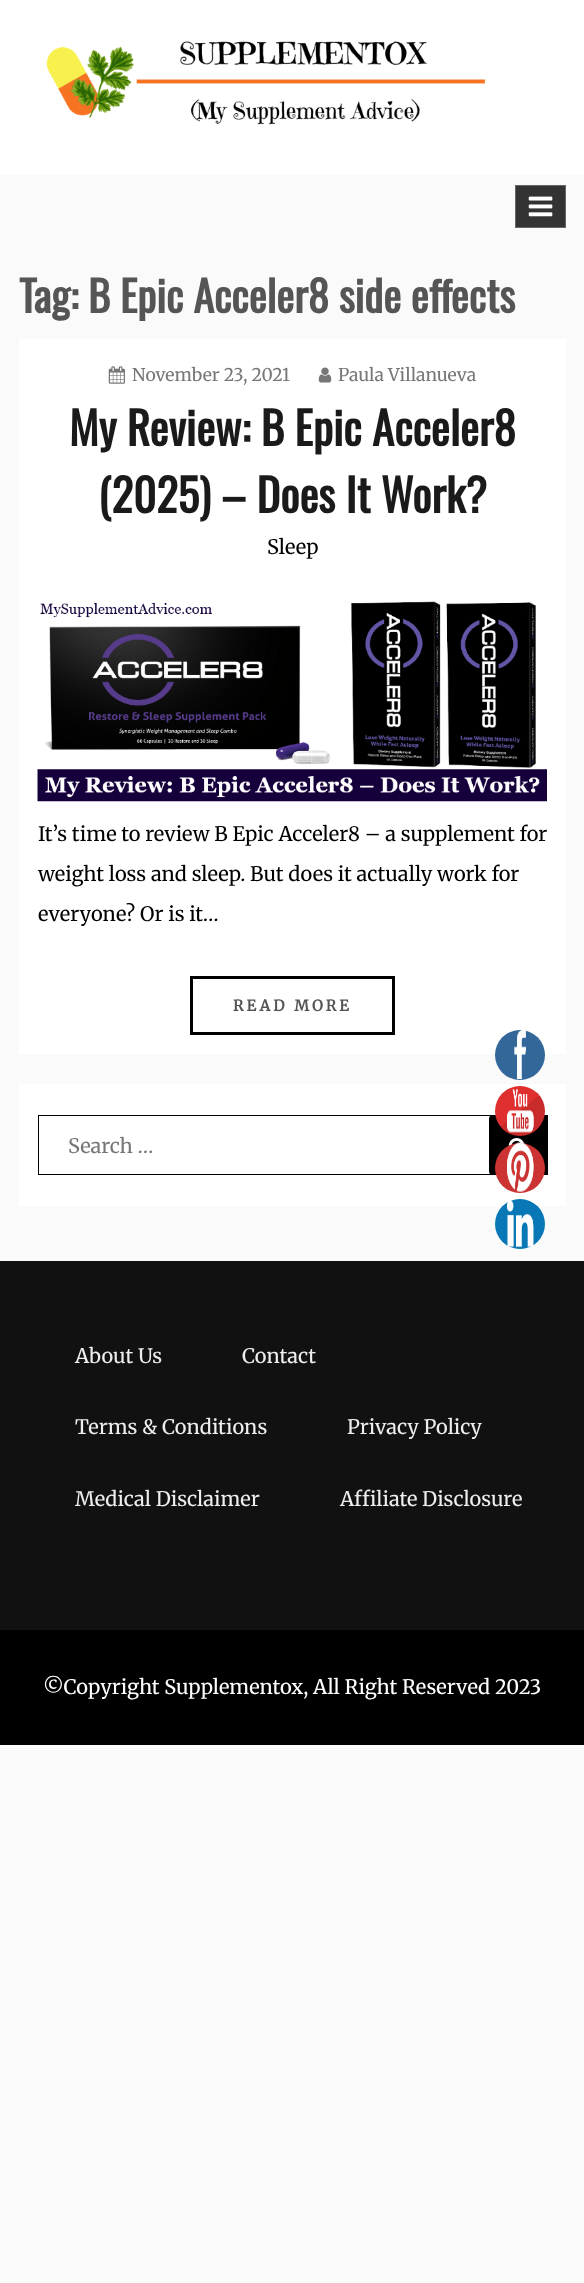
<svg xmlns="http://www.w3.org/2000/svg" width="584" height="2283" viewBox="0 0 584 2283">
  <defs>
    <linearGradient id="g1" gradientUnits="userSpaceOnUse" x1="498" y1="1084" x2="542" y2="1139"><stop offset="0.14" stop-color="#e02f2f"/><stop offset="0.49" stop-color="#e02f2f"/><stop offset="0.49" stop-color="#c92a2a"/><stop offset="0.85" stop-color="#c92a2a"/></linearGradient>
  </defs>
  <rect width="100%" height="100%" fill="#fafafa"/>
  <rect x="0" y="0" width="584" height="175" fill="#ffffff"/>
  <image x="46" y="41" width="440" height="84" href="img1.png"/>
  <rect x="515.5" y="185.5" width="50" height="42" fill="#333333" stroke="#666666"/>
  <image x="528" y="196" width="25" height="21" href="img2.png"/>
  <text x="19" y="313" font-family="Oswald" font-size="42.5" font-weight="bold" fill="#555555">Tag: B Epic Acceler8 side effects</text>
  <rect x="19" y="339" width="547" height="715" fill="#ffffff"/>
  <image x="108" y="366" width="17" height="18" href="img3.png"/>
  <text x="132" y="381" font-family="Merriweather" font-size="17.5" font-weight="300" fill="#777777">November 23, 2021</text>
  <image x="318" y="367" width="14" height="16" href="img4.png"/>
  <text x="338" y="381" font-family="Merriweather" font-size="17.5" font-weight="300" fill="#777777">Paula Villanueva</text>
  <text x="69" y="446" font-family="Oswald" font-size="45" font-weight="bold" fill="#1a1a1a">My Review: B Epic Acceler8</text>
  <text x="98" y="513" font-family="Oswald" font-size="45" font-weight="bold" fill="#1a1a1a">(2025) – Does It Work?</text>
  <text x="267" y="554" font-family="Merriweather" font-size="20" font-weight="300" fill="#000000">Sleep</text>
  <image x="37" y="601" width="510" height="201" href="img5.png"/>
  <text x="38" y="841" font-family="Merriweather" font-size="20" font-weight="300" fill="#000000">It’s time to review B Epic Acceler8 – a supplement for</text>
  <text x="38" y="881" font-family="Merriweather" font-size="20" font-weight="300" fill="#000000">weight loss and sleep. But does it actually work for</text>
  <text x="38" y="921" font-family="Merriweather" font-size="20" font-weight="300" fill="#000000">everyone? Or is it…</text>
  <rect x="191.5" y="977.5" width="202" height="56" fill="none" stroke="#000000" stroke-width="3"/>
  <text x="233" y="1011" font-family="Merriweather" font-size="15" font-weight="bold" letter-spacing="3.1" fill="#555555">READ MORE</text>
  <rect x="19" y="1084" width="547" height="122" fill="#ffffff"/>
  <rect x="38.5" y="1115.5" width="509" height="59" fill="none" stroke="#000000"/>
  <text x="68" y="1153" font-family="Merriweather" font-size="20" font-weight="300" fill="#777777">Search …</text>
  <rect x="489" y="1115" width="59" height="60" rx="4" fill="#000000"/>
  <image x="508" y="1138" width="17" height="8" href="img6.png"/>
  <rect x="0" y="1630" width="584" height="115" fill="#000000"/>
  <rect x="0" y="1261" width="584" height="369" fill="#111111"/>
  <text x="75" y="1363" font-family="Merriweather" font-size="20" font-weight="300" fill="#eeeeee">About Us</text>
  <text x="242" y="1363" font-family="Merriweather" font-size="20" font-weight="300" fill="#eeeeee">Contact</text>
  <text x="75" y="1434" font-family="Merriweather" font-size="20" font-weight="300" fill="#eeeeee">Terms &amp; Conditions</text>
  <text x="347" y="1434" font-family="Merriweather" font-size="20" font-weight="300" fill="#eeeeee">Privacy Policy</text>
  <text x="75" y="1506" font-family="Merriweather" font-size="20" font-weight="300" fill="#eeeeee">Medical Disclaimer</text>
  <text x="340" y="1506" font-family="Merriweather" font-size="20" font-weight="300" fill="#eeeeee">Affiliate Disclosure</text>
  <text x="43" y="1694" font-family="Merriweather" font-size="20" font-weight="300" fill="#ffffff">©Copyright Supplementox, All Right Reserved 2023</text>
  <circle cx="520" cy="1055" r="25" fill="#336699"/>
  <image x="514" y="1030" width="13" height="50" href="img7.png"/>
  <circle cx="520" cy="1111" r="25" fill="url(#g1)"/>
  <image x="507" y="1089" width="27" height="44" href="img8.png"/>
  <circle cx="520" cy="1168" r="25" fill="#cc3333"/>
  <image x="507" y="1142" width="27" height="50" href="img9.png"/>
  <circle cx="520" cy="1224" r="25" fill="#0877b5"/>
  <image x="507" y="1200" width="27" height="47" href="img10.png"/>
</svg>
